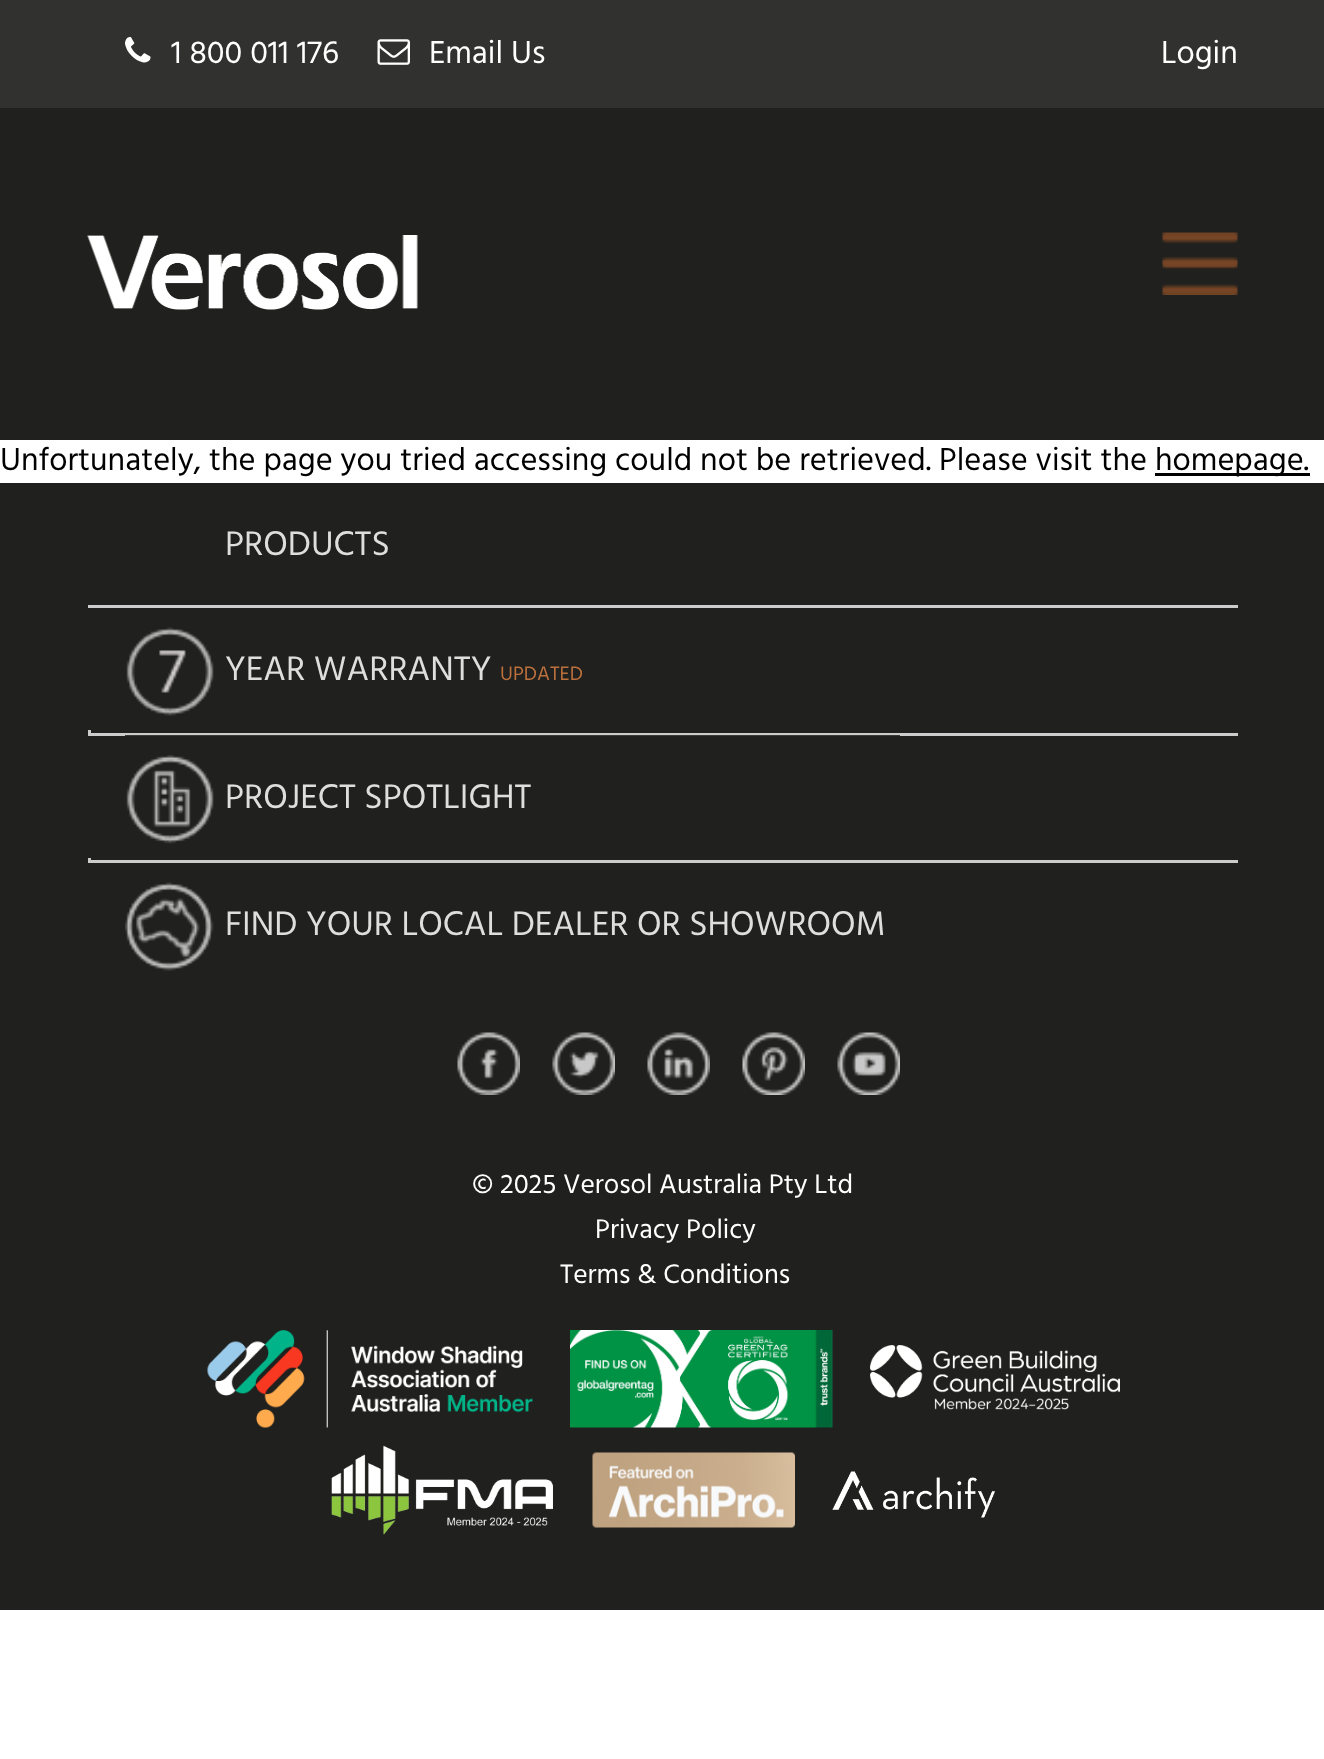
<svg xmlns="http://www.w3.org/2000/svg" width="1324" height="1759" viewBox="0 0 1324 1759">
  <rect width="100%" height="100%" fill="#ffffff"/>
  <rect x="0" y="0" width="1324" height="108" fill="#313130"/>
  <rect x="0" y="108" width="1324" height="332" fill="#20201e"/>
  <image x="125" y="37" width="26" height="26" href="img1.png"/>
  <text x="171" y="63" font-family="Hind" font-size="32.5" fill="#ffffff">1 800 011 176</text>
  <image x="377" y="39" width="33" height="26" href="img2.png"/>
  <text x="429" y="63" font-family="Hind" font-size="32.5" fill="#ffffff">Email Us</text>
  <text x="1161" y="63" font-family="Hind" font-size="32.5" fill="#ffffff">Login</text>
  <image x="87" y="235" width="331" height="75" href="img3.png"/>
  <image x="1162" y="232" width="76" height="63" href="img4.png"/>
  <text x="0" y="470" font-family="Hind" font-size="32.5" fill="#000000">Unfortunately, the page you tried accessing could not be retrieved. Please visit the</text>
  <rect x="1155" y="473" width="155" height="3" fill="#000000"/>
  <text x="1155" y="470" font-family="Hind" font-size="32.5" fill="#000000">homepage.</text>
  <rect x="0" y="483" width="1324" height="1127" fill="#20201e"/>
  <text x="225" y="555" font-family="Hind" font-size="35" fill="#dededd">PRODUCTS</text>
  <rect x="88" y="605" width="1150" height="3" fill="#cccccc"/>
  <image x="126" y="627" width="88" height="89" href="img5.png"/>
  <text x="225" y="680" font-family="Hind" font-size="35" fill="#dededd">YEAR WARRANTY</text>
  <text x="500" y="680" font-family="Hind" font-size="20" fill="#bb703d">UPDATED</text>
  <rect x="88" y="730" width="3" height="3" fill="#cccccc"/>
  <rect x="88" y="733" width="1150" height="3" fill="#cccccc"/>
  <rect x="125" y="735" width="775" height="1" fill="#3a3a38"/>
  <image x="126" y="755" width="88" height="89" href="img6.png"/>
  <text x="225" y="808" font-family="Hind" font-size="35" fill="#dededd">PROJECT SPOTLIGHT</text>
  <rect x="88" y="858" width="3" height="2" fill="#cccccc"/>
  <rect x="88" y="860" width="1150" height="3" fill="#cccccc"/>
  <image x="125" y="882" width="89" height="89" href="img7.png"/>
  <text x="225" y="935" font-family="Hind" font-size="35" fill="#dededd">FIND YOUR LOCAL DEALER OR SHOWROOM</text>
  <image x="457" y="1032" width="63" height="63" href="img8.png"/>
  <image x="552" y="1032" width="63" height="63" href="img9.png"/>
  <image x="647" y="1032" width="63" height="63" href="img10.png"/>
  <image x="742" y="1032" width="63" height="63" href="img11.png"/>
  <image x="837" y="1032" width="63" height="63" href="img12.png"/>
  <text x="472" y="1193" font-family="Hind" font-size="27.5" fill="#ffffff">© 2025 Verosol Australia Pty Ltd</text>
  <text x="595" y="1238" font-family="Hind" font-size="27.5" fill="#ffffff">Privacy Policy</text>
  <text x="560" y="1283" font-family="Hind" font-size="27.5" fill="#ffffff">Terms &amp; Conditions</text>
  <image x="207" y="1330" width="326" height="98" href="img13.png"/>
  <image x="570" y="1330" width="263" height="98" href="img14.png"/>
  <image x="870" y="1345" width="250" height="65" href="img15.png"/>
  <image x="331" y="1445" width="222" height="90" href="img16.png"/>
  <image x="592" y="1452" width="203" height="76" href="img17.png"/>
  <image x="832" y="1471" width="163" height="47" href="img18.png"/>
</svg>
